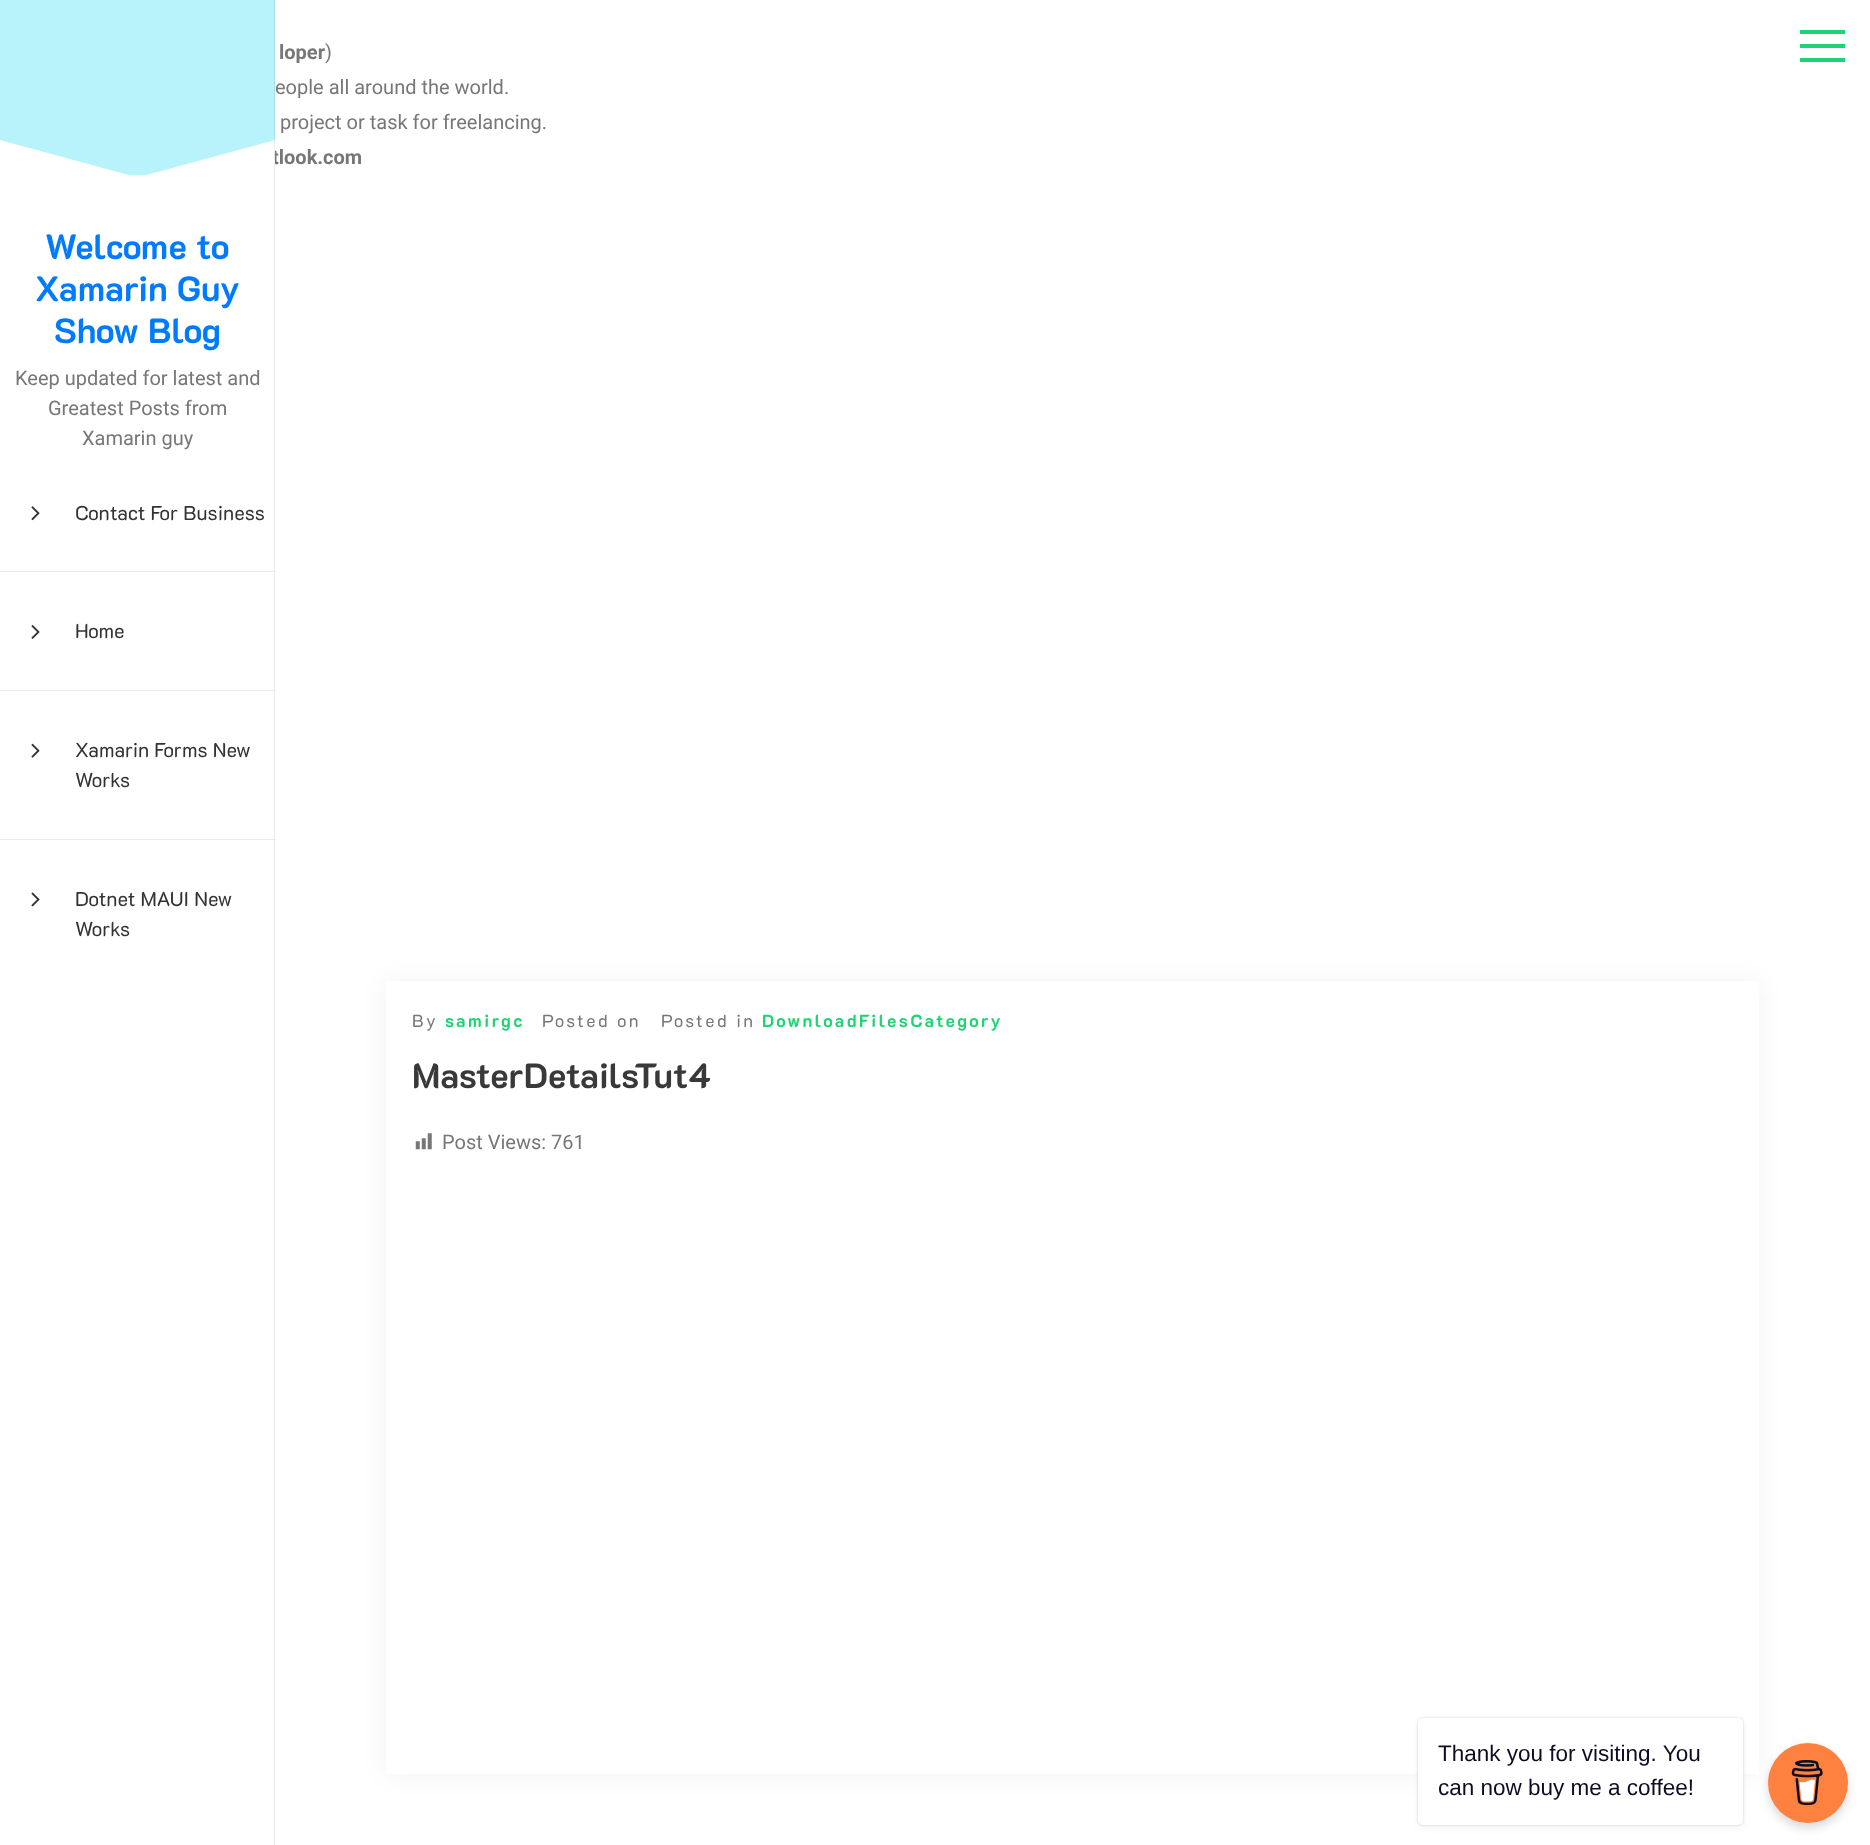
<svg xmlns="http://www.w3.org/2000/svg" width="1870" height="1845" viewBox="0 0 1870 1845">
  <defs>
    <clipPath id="clip1"><rect x="0" y="0" width="275" height="175"/></clipPath>
    <filter id="blur1" x="-50%" y="-200%" width="200%" height="500%"><feGaussianBlur stdDeviation="12.5"/></filter>
    <filter id="blur2" x="-50%" y="-200%" width="200%" height="500%"><feGaussianBlur stdDeviation="1"/></filter>
    <filter id="blur3" x="-50%" y="-200%" width="200%" height="500%"><feGaussianBlur stdDeviation="3"/></filter>
    <filter id="blur4" x="-50%" y="-200%" width="200%" height="500%"><feGaussianBlur stdDeviation="5"/></filter>
  </defs>
  <rect width="100%" height="100%" fill="#ffffff"/>
  <text x="279" y="59" font-family="Roboto" font-size="20" font-weight="bold" fill="#777777">loper</text>
  <text x="325" y="59" font-family="Roboto" font-size="20" fill="#777777">)</text>
  <text x="275" y="94" font-family="Roboto" font-size="20" fill="#777777">eople all around the world.</text>
  <text x="280" y="129" font-family="Roboto" font-size="20" fill="#777777">project or task for freelancing.</text>
  <text x="272" y="164" font-family="Roboto" font-size="20" font-weight="bold" fill="#777777">tlook.com</text>
  <rect x="1800" y="30" width="45" height="4" fill="#1ed373"/>
  <rect x="1800" y="44" width="45" height="4" fill="#1ed373"/>
  <rect x="1800" y="58" width="45" height="4" fill="#1ed373"/>
  <rect x="0" y="0" width="275" height="175" fill="#b8f3fb"/>
  <g clip-path="url(#clip1)">
    <path d="M-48 127L217 199L186 317L-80 246Z" fill="#ffffff"/>
    <path d="M58 199L323 127L355 246L89 317Z" fill="#ffffff"/>
  </g>
  <text x="45" y="259" font-family="'K2D'" font-size="35" font-weight="bold" fill="#007bff">Welcome to</text>
  <text x="35" y="301" font-family="'K2D'" font-size="35" font-weight="bold" fill="#007bff">Xamarin Guy</text>
  <text x="54" y="343" font-family="'K2D'" font-size="35" font-weight="bold" fill="#007bff">Show Blog</text>
  <rect x="0" y="571" width="275" height="1" fill="#ebebeb"/>
  <rect x="0" y="690" width="275" height="1" fill="#ebebeb"/>
  <rect x="0" y="839" width="275" height="1" fill="#ebebeb"/>
  <rect x="274" y="0" width="1" height="1845" fill="#000000" fill-opacity="0.08"/>
  <text x="15" y="385" font-family="Roboto" font-size="20" fill="#777777">Keep updated for latest and</text>
  <text x="48" y="415" font-family="Roboto" font-size="20" fill="#777777">Greatest Posts from</text>
  <text x="82" y="445" font-family="Roboto" font-size="20" fill="#777777">Xamarin guy</text>
  <image x="31" y="506" width="9" height="15" href="img1.png"/>
  <text x="75" y="520" font-family="'K2D'" font-size="20" fill="#333333">Contact For Business</text>
  <image x="31" y="625" width="9" height="14" href="img2.png"/>
  <text x="75" y="638" font-family="'K2D'" font-size="20" fill="#333333">Home</text>
  <image x="31" y="743" width="9" height="15" href="img3.png"/>
  <text x="75" y="757" font-family="'K2D'" font-size="20" fill="#333333">Xamarin Forms New</text>
  <text x="75" y="787" font-family="'K2D'" font-size="20" fill="#333333">Works</text>
  <image x="31" y="892" width="9" height="15" href="img4.png"/>
  <text x="75" y="906" font-family="'K2D'" font-size="20" fill="#333333">Dotnet MAUI New</text>
  <text x="75" y="936" font-family="'K2D'" font-size="20" fill="#333333">Works</text>
  <rect x="386" y="981" width="1373" height="793" fill="#000000" fill-opacity="0.05" filter="url(#blur1)"/>
  <rect x="386" y="981" width="1373" height="793" fill="#ffffff"/>
  <text x="412" y="1027" font-family="'K2D'" font-size="17.5" letter-spacing="2.5" fill="#777777">By</text>
  <text x="445" y="1027" font-family="'K2D'" font-size="17.5" font-weight="bold" letter-spacing="2.5" fill="#1ed373">samirgc</text>
  <text x="542" y="1027" font-family="'K2D'" font-size="17.5" letter-spacing="2.5" fill="#777777">Posted on</text>
  <text x="661" y="1027" font-family="'K2D'" font-size="17.5" letter-spacing="2.5" fill="#777777">Posted in</text>
  <text x="762" y="1027" font-family="'K2D'" font-size="17.5" font-weight="bold" letter-spacing="2.5" fill="#1ed373">DownloadFilesCategory</text>
  <text x="412" y="1088" font-family="'K2D'" font-size="35" font-weight="bold" fill="#3a3939">MasterDetailsTut4</text>
  <image x="415" y="1133" width="17" height="17" href="img5.png"/>
  <text x="442" y="1149" font-family="Roboto" font-size="20" fill="#777777">Post Views: 761</text>
  <rect x="1418" y="1718" width="325" height="107" rx="5" fill="#000000" fill-opacity="0.15" filter="url(#blur2)"/>
  <rect x="1418" y="1720" width="325" height="108" rx="5" fill="#000000" fill-opacity="0.05" filter="url(#blur3)"/>
  <rect x="1418" y="1718" width="325" height="107" rx="5" fill="#ffffff"/>
  <text x="1438" y="1761" font-family="Liberation Sans" font-size="22.5" fill="#0d0c22">Thank you for visiting. You</text>
  <text x="1438" y="1795" font-family="Liberation Sans" font-size="22.5" fill="#0d0c22">can now buy me a coffee!</text>
  <rect x="1768" y="1748" width="80" height="80" rx="40" fill="#000000" fill-opacity="0.15" filter="url(#blur4)"/>
  <circle cx="1808" cy="1783" r="40" fill="#ff813f"/>
  <image x="1791" y="1760" width="32" height="45" href="img6.png"/>
</svg>
